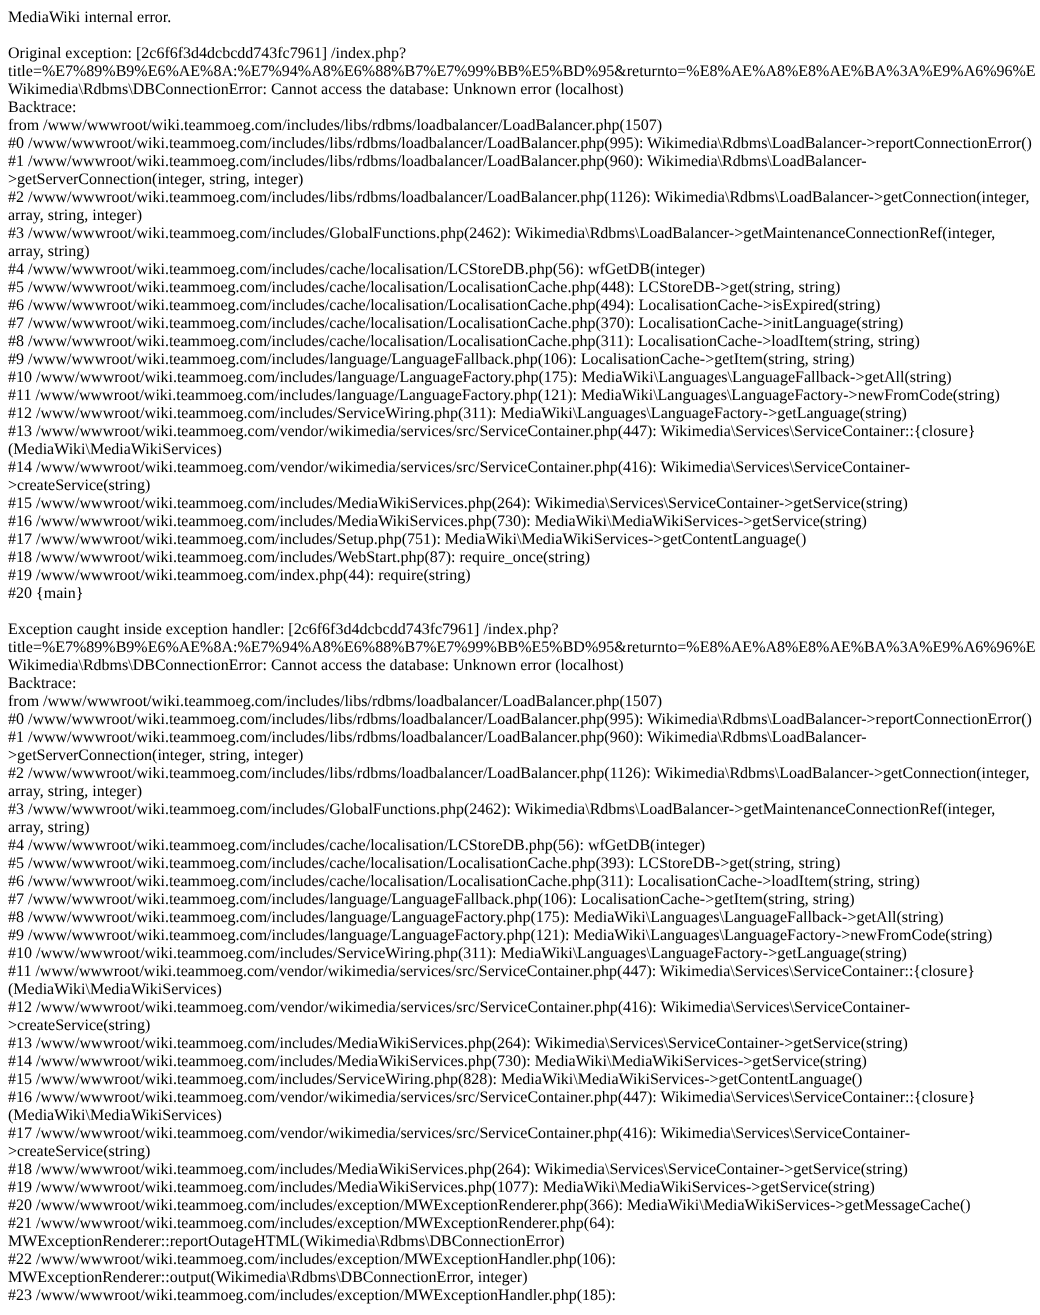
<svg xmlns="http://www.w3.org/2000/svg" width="1040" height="1315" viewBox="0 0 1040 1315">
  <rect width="100%" height="100%" fill="#ffffff"/>
  <text x="8" y="22" font-family="Liberation Serif" font-size="16" fill="#000000">MediaWiki internal error.</text>
  <text x="8" y="58" font-family="Liberation Serif" font-size="16" fill="#000000">Original exception: [2c6f6f3d4dcbcdd743fc7961] /index.php?</text>
  <text x="8" y="76" font-family="Liberation Serif" font-size="16" fill="#000000">title=%E7%89%B9%E6%AE%8A:%E7%94%A8%E6%88%B7%E7%99%BB%E5%BD%95&amp;returnto=%E8%AE%A8%E8%AE%BA%3A%E9%A6%96%E</text>
  <text x="8" y="94" font-family="Liberation Serif" font-size="16" fill="#000000">Wikimedia\Rdbms\DBConnectionError: Cannot access the database: Unknown error (localhost)</text>
  <text x="8" y="112" font-family="Liberation Serif" font-size="16" fill="#000000">Backtrace:</text>
  <text x="8" y="130" font-family="Liberation Serif" font-size="16" fill="#000000">from /www/wwwroot/wiki.teammoeg.com/includes/libs/rdbms/loadbalancer/LoadBalancer.php(1507)</text>
  <text x="8" y="148" font-family="Liberation Serif" font-size="16" fill="#000000">#0 /www/wwwroot/wiki.teammoeg.com/includes/libs/rdbms/loadbalancer/LoadBalancer.php(995): Wikimedia\Rdbms\LoadBalancer-&gt;reportConnectionError()</text>
  <text x="8" y="166" font-family="Liberation Serif" font-size="16" fill="#000000">#1 /www/wwwroot/wiki.teammoeg.com/includes/libs/rdbms/loadbalancer/LoadBalancer.php(960): Wikimedia\Rdbms\LoadBalancer-</text>
  <text x="8" y="184" font-family="Liberation Serif" font-size="16" fill="#000000">&gt;getServerConnection(integer, string, integer)</text>
  <text x="8" y="202" font-family="Liberation Serif" font-size="16" fill="#000000">#2 /www/wwwroot/wiki.teammoeg.com/includes/libs/rdbms/loadbalancer/LoadBalancer.php(1126): Wikimedia\Rdbms\LoadBalancer-&gt;getConnection(integer,</text>
  <text x="8" y="220" font-family="Liberation Serif" font-size="16" fill="#000000">array, string, integer)</text>
  <text x="8" y="238" font-family="Liberation Serif" font-size="16" fill="#000000">#3 /www/wwwroot/wiki.teammoeg.com/includes/GlobalFunctions.php(2462): Wikimedia\Rdbms\LoadBalancer-&gt;getMaintenanceConnectionRef(integer,</text>
  <text x="8" y="256" font-family="Liberation Serif" font-size="16" fill="#000000">array, string)</text>
  <text x="8" y="274" font-family="Liberation Serif" font-size="16" fill="#000000">#4 /www/wwwroot/wiki.teammoeg.com/includes/cache/localisation/LCStoreDB.php(56): wfGetDB(integer)</text>
  <text x="8" y="292" font-family="Liberation Serif" font-size="16" fill="#000000">#5 /www/wwwroot/wiki.teammoeg.com/includes/cache/localisation/LocalisationCache.php(448): LCStoreDB-&gt;get(string, string)</text>
  <text x="8" y="310" font-family="Liberation Serif" font-size="16" fill="#000000">#6 /www/wwwroot/wiki.teammoeg.com/includes/cache/localisation/LocalisationCache.php(494): LocalisationCache-&gt;isExpired(string)</text>
  <text x="8" y="328" font-family="Liberation Serif" font-size="16" fill="#000000">#7 /www/wwwroot/wiki.teammoeg.com/includes/cache/localisation/LocalisationCache.php(370): LocalisationCache-&gt;initLanguage(string)</text>
  <text x="8" y="346" font-family="Liberation Serif" font-size="16" fill="#000000">#8 /www/wwwroot/wiki.teammoeg.com/includes/cache/localisation/LocalisationCache.php(311): LocalisationCache-&gt;loadItem(string, string)</text>
  <text x="8" y="364" font-family="Liberation Serif" font-size="16" fill="#000000">#9 /www/wwwroot/wiki.teammoeg.com/includes/language/LanguageFallback.php(106): LocalisationCache-&gt;getItem(string, string)</text>
  <text x="8" y="382" font-family="Liberation Serif" font-size="16" fill="#000000">#10 /www/wwwroot/wiki.teammoeg.com/includes/language/LanguageFactory.php(175): MediaWiki\Languages\LanguageFallback-&gt;getAll(string)</text>
  <text x="8" y="400" font-family="Liberation Serif" font-size="16" fill="#000000">#11 /www/wwwroot/wiki.teammoeg.com/includes/language/LanguageFactory.php(121): MediaWiki\Languages\LanguageFactory-&gt;newFromCode(string)</text>
  <text x="8" y="418" font-family="Liberation Serif" font-size="16" fill="#000000">#12 /www/wwwroot/wiki.teammoeg.com/includes/ServiceWiring.php(311): MediaWiki\Languages\LanguageFactory-&gt;getLanguage(string)</text>
  <text x="8" y="436" font-family="Liberation Serif" font-size="16" fill="#000000">#13 /www/wwwroot/wiki.teammoeg.com/vendor/wikimedia/services/src/ServiceContainer.php(447): Wikimedia\Services\ServiceContainer::{closure}</text>
  <text x="8" y="454" font-family="Liberation Serif" font-size="16" fill="#000000">(MediaWiki\MediaWikiServices)</text>
  <text x="8" y="472" font-family="Liberation Serif" font-size="16" fill="#000000">#14 /www/wwwroot/wiki.teammoeg.com/vendor/wikimedia/services/src/ServiceContainer.php(416): Wikimedia\Services\ServiceContainer-</text>
  <text x="8" y="490" font-family="Liberation Serif" font-size="16" fill="#000000">&gt;createService(string)</text>
  <text x="8" y="508" font-family="Liberation Serif" font-size="16" fill="#000000">#15 /www/wwwroot/wiki.teammoeg.com/includes/MediaWikiServices.php(264): Wikimedia\Services\ServiceContainer-&gt;getService(string)</text>
  <text x="8" y="526" font-family="Liberation Serif" font-size="16" fill="#000000">#16 /www/wwwroot/wiki.teammoeg.com/includes/MediaWikiServices.php(730): MediaWiki\MediaWikiServices-&gt;getService(string)</text>
  <text x="8" y="544" font-family="Liberation Serif" font-size="16" fill="#000000">#17 /www/wwwroot/wiki.teammoeg.com/includes/Setup.php(751): MediaWiki\MediaWikiServices-&gt;getContentLanguage()</text>
  <text x="8" y="562" font-family="Liberation Serif" font-size="16" fill="#000000">#18 /www/wwwroot/wiki.teammoeg.com/includes/WebStart.php(87): require_once(string)</text>
  <text x="8" y="580" font-family="Liberation Serif" font-size="16" fill="#000000">#19 /www/wwwroot/wiki.teammoeg.com/index.php(44): require(string)</text>
  <text x="8" y="598" font-family="Liberation Serif" font-size="16" fill="#000000">#20 {main}</text>
  <text x="8" y="634" font-family="Liberation Serif" font-size="16" fill="#000000">Exception caught inside exception handler: [2c6f6f3d4dcbcdd743fc7961] /index.php?</text>
  <text x="8" y="652" font-family="Liberation Serif" font-size="16" fill="#000000">title=%E7%89%B9%E6%AE%8A:%E7%94%A8%E6%88%B7%E7%99%BB%E5%BD%95&amp;returnto=%E8%AE%A8%E8%AE%BA%3A%E9%A6%96%E</text>
  <text x="8" y="670" font-family="Liberation Serif" font-size="16" fill="#000000">Wikimedia\Rdbms\DBConnectionError: Cannot access the database: Unknown error (localhost)</text>
  <text x="8" y="688" font-family="Liberation Serif" font-size="16" fill="#000000">Backtrace:</text>
  <text x="8" y="706" font-family="Liberation Serif" font-size="16" fill="#000000">from /www/wwwroot/wiki.teammoeg.com/includes/libs/rdbms/loadbalancer/LoadBalancer.php(1507)</text>
  <text x="8" y="724" font-family="Liberation Serif" font-size="16" fill="#000000">#0 /www/wwwroot/wiki.teammoeg.com/includes/libs/rdbms/loadbalancer/LoadBalancer.php(995): Wikimedia\Rdbms\LoadBalancer-&gt;reportConnectionError()</text>
  <text x="8" y="742" font-family="Liberation Serif" font-size="16" fill="#000000">#1 /www/wwwroot/wiki.teammoeg.com/includes/libs/rdbms/loadbalancer/LoadBalancer.php(960): Wikimedia\Rdbms\LoadBalancer-</text>
  <text x="8" y="760" font-family="Liberation Serif" font-size="16" fill="#000000">&gt;getServerConnection(integer, string, integer)</text>
  <text x="8" y="778" font-family="Liberation Serif" font-size="16" fill="#000000">#2 /www/wwwroot/wiki.teammoeg.com/includes/libs/rdbms/loadbalancer/LoadBalancer.php(1126): Wikimedia\Rdbms\LoadBalancer-&gt;getConnection(integer,</text>
  <text x="8" y="796" font-family="Liberation Serif" font-size="16" fill="#000000">array, string, integer)</text>
  <text x="8" y="814" font-family="Liberation Serif" font-size="16" fill="#000000">#3 /www/wwwroot/wiki.teammoeg.com/includes/GlobalFunctions.php(2462): Wikimedia\Rdbms\LoadBalancer-&gt;getMaintenanceConnectionRef(integer,</text>
  <text x="8" y="832" font-family="Liberation Serif" font-size="16" fill="#000000">array, string)</text>
  <text x="8" y="850" font-family="Liberation Serif" font-size="16" fill="#000000">#4 /www/wwwroot/wiki.teammoeg.com/includes/cache/localisation/LCStoreDB.php(56): wfGetDB(integer)</text>
  <text x="8" y="868" font-family="Liberation Serif" font-size="16" fill="#000000">#5 /www/wwwroot/wiki.teammoeg.com/includes/cache/localisation/LocalisationCache.php(393): LCStoreDB-&gt;get(string, string)</text>
  <text x="8" y="886" font-family="Liberation Serif" font-size="16" fill="#000000">#6 /www/wwwroot/wiki.teammoeg.com/includes/cache/localisation/LocalisationCache.php(311): LocalisationCache-&gt;loadItem(string, string)</text>
  <text x="8" y="904" font-family="Liberation Serif" font-size="16" fill="#000000">#7 /www/wwwroot/wiki.teammoeg.com/includes/language/LanguageFallback.php(106): LocalisationCache-&gt;getItem(string, string)</text>
  <text x="8" y="922" font-family="Liberation Serif" font-size="16" fill="#000000">#8 /www/wwwroot/wiki.teammoeg.com/includes/language/LanguageFactory.php(175): MediaWiki\Languages\LanguageFallback-&gt;getAll(string)</text>
  <text x="8" y="940" font-family="Liberation Serif" font-size="16" fill="#000000">#9 /www/wwwroot/wiki.teammoeg.com/includes/language/LanguageFactory.php(121): MediaWiki\Languages\LanguageFactory-&gt;newFromCode(string)</text>
  <text x="8" y="958" font-family="Liberation Serif" font-size="16" fill="#000000">#10 /www/wwwroot/wiki.teammoeg.com/includes/ServiceWiring.php(311): MediaWiki\Languages\LanguageFactory-&gt;getLanguage(string)</text>
  <text x="8" y="976" font-family="Liberation Serif" font-size="16" fill="#000000">#11 /www/wwwroot/wiki.teammoeg.com/vendor/wikimedia/services/src/ServiceContainer.php(447): Wikimedia\Services\ServiceContainer::{closure}</text>
  <text x="8" y="994" font-family="Liberation Serif" font-size="16" fill="#000000">(MediaWiki\MediaWikiServices)</text>
  <text x="8" y="1012" font-family="Liberation Serif" font-size="16" fill="#000000">#12 /www/wwwroot/wiki.teammoeg.com/vendor/wikimedia/services/src/ServiceContainer.php(416): Wikimedia\Services\ServiceContainer-</text>
  <text x="8" y="1030" font-family="Liberation Serif" font-size="16" fill="#000000">&gt;createService(string)</text>
  <text x="8" y="1048" font-family="Liberation Serif" font-size="16" fill="#000000">#13 /www/wwwroot/wiki.teammoeg.com/includes/MediaWikiServices.php(264): Wikimedia\Services\ServiceContainer-&gt;getService(string)</text>
  <text x="8" y="1066" font-family="Liberation Serif" font-size="16" fill="#000000">#14 /www/wwwroot/wiki.teammoeg.com/includes/MediaWikiServices.php(730): MediaWiki\MediaWikiServices-&gt;getService(string)</text>
  <text x="8" y="1084" font-family="Liberation Serif" font-size="16" fill="#000000">#15 /www/wwwroot/wiki.teammoeg.com/includes/ServiceWiring.php(828): MediaWiki\MediaWikiServices-&gt;getContentLanguage()</text>
  <text x="8" y="1102" font-family="Liberation Serif" font-size="16" fill="#000000">#16 /www/wwwroot/wiki.teammoeg.com/vendor/wikimedia/services/src/ServiceContainer.php(447): Wikimedia\Services\ServiceContainer::{closure}</text>
  <text x="8" y="1120" font-family="Liberation Serif" font-size="16" fill="#000000">(MediaWiki\MediaWikiServices)</text>
  <text x="8" y="1138" font-family="Liberation Serif" font-size="16" fill="#000000">#17 /www/wwwroot/wiki.teammoeg.com/vendor/wikimedia/services/src/ServiceContainer.php(416): Wikimedia\Services\ServiceContainer-</text>
  <text x="8" y="1156" font-family="Liberation Serif" font-size="16" fill="#000000">&gt;createService(string)</text>
  <text x="8" y="1174" font-family="Liberation Serif" font-size="16" fill="#000000">#18 /www/wwwroot/wiki.teammoeg.com/includes/MediaWikiServices.php(264): Wikimedia\Services\ServiceContainer-&gt;getService(string)</text>
  <text x="8" y="1192" font-family="Liberation Serif" font-size="16" fill="#000000">#19 /www/wwwroot/wiki.teammoeg.com/includes/MediaWikiServices.php(1077): MediaWiki\MediaWikiServices-&gt;getService(string)</text>
  <text x="8" y="1210" font-family="Liberation Serif" font-size="16" fill="#000000">#20 /www/wwwroot/wiki.teammoeg.com/includes/exception/MWExceptionRenderer.php(366): MediaWiki\MediaWikiServices-&gt;getMessageCache()</text>
  <text x="8" y="1228" font-family="Liberation Serif" font-size="16" fill="#000000">#21 /www/wwwroot/wiki.teammoeg.com/includes/exception/MWExceptionRenderer.php(64):</text>
  <text x="8" y="1246" font-family="Liberation Serif" font-size="16" fill="#000000">MWExceptionRenderer::reportOutageHTML(Wikimedia\Rdbms\DBConnectionError)</text>
  <text x="8" y="1264" font-family="Liberation Serif" font-size="16" fill="#000000">#22 /www/wwwroot/wiki.teammoeg.com/includes/exception/MWExceptionHandler.php(106):</text>
  <text x="8" y="1282" font-family="Liberation Serif" font-size="16" fill="#000000">MWExceptionRenderer::output(Wikimedia\Rdbms\DBConnectionError, integer)</text>
  <text x="8" y="1300" font-family="Liberation Serif" font-size="16" fill="#000000">#23 /www/wwwroot/wiki.teammoeg.com/includes/exception/MWExceptionHandler.php(185):</text>
</svg>
